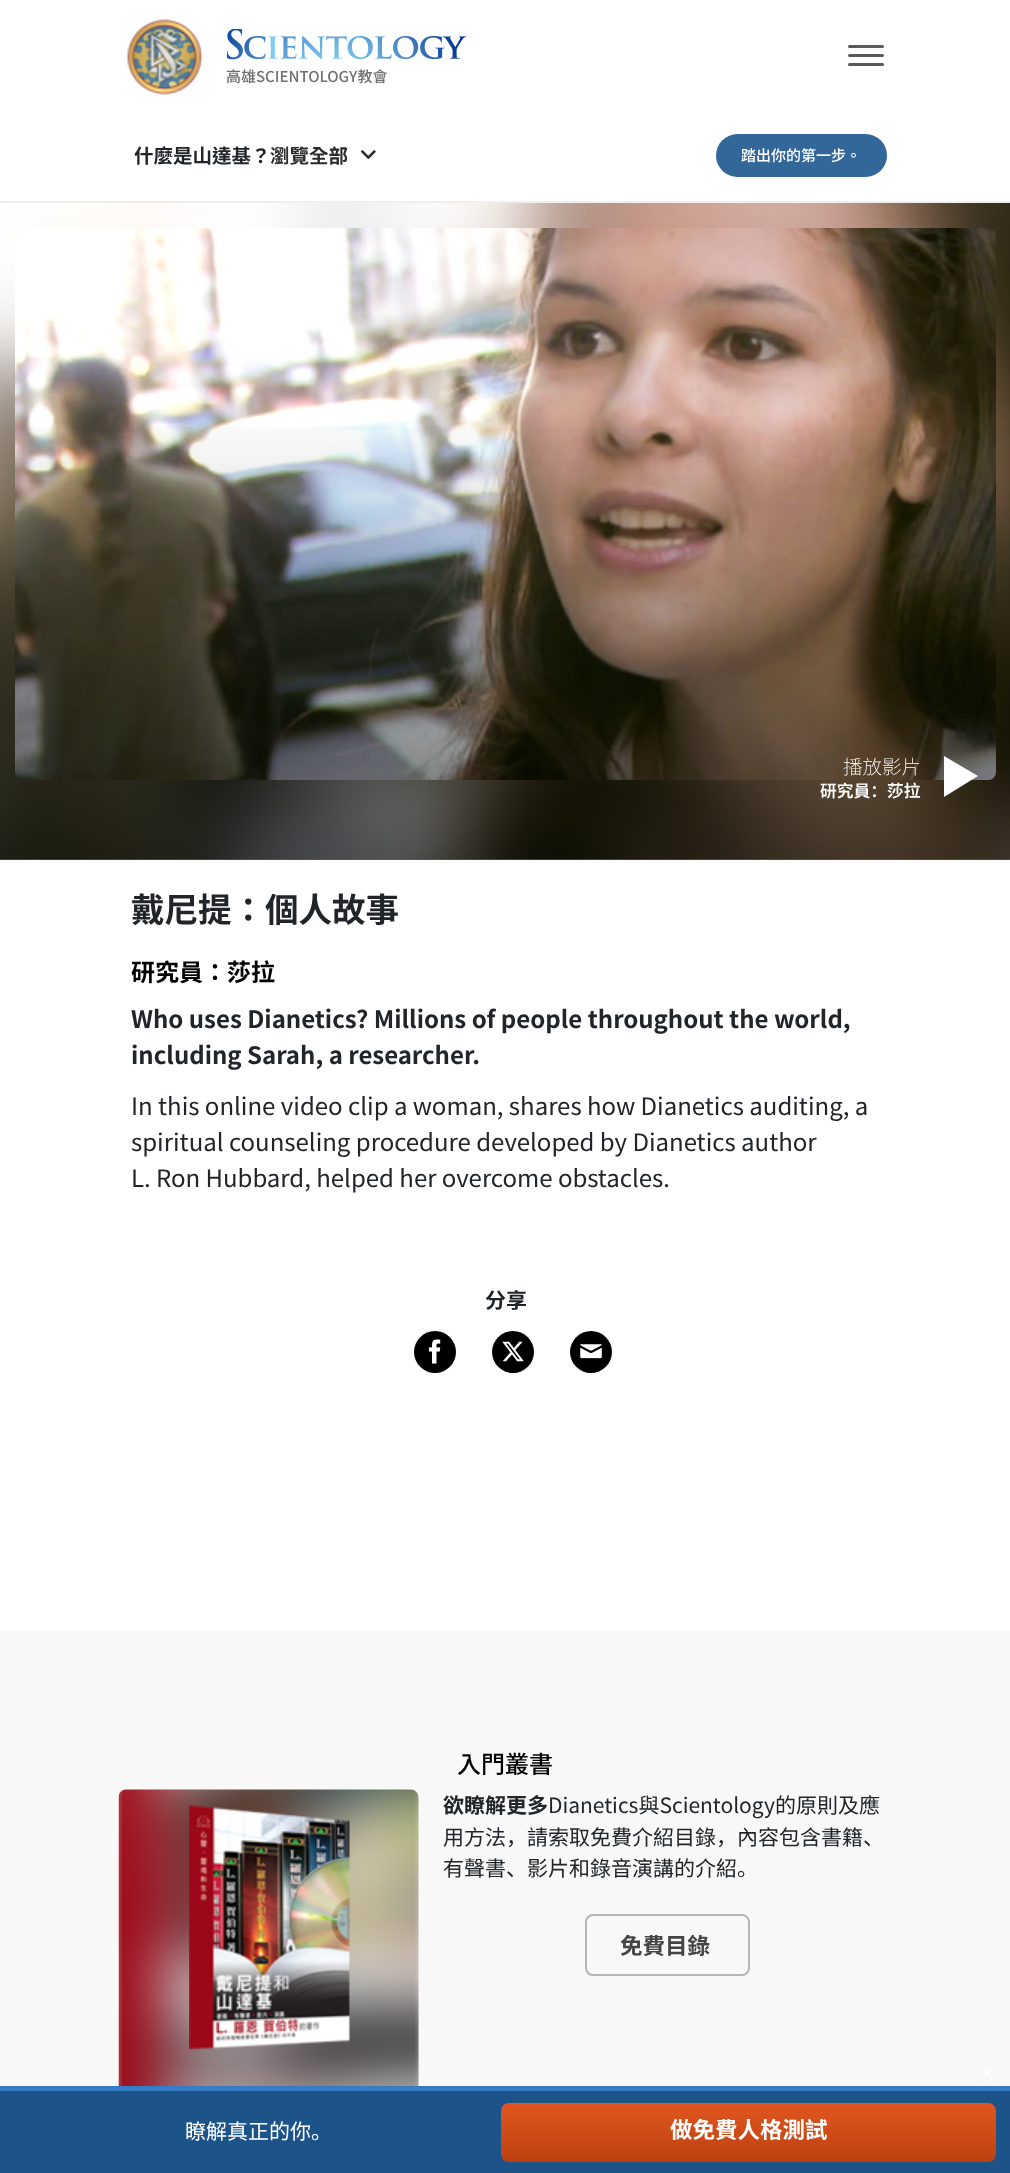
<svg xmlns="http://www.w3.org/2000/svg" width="1010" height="2173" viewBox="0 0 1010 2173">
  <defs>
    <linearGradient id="g1" gradientUnits="userSpaceOnUse" x1="506" y1="859" x2="506" y2="202"><stop offset="0" stop-color="#000000" stop-opacity="0.6"/><stop offset="0.5" stop-color="#000000" stop-opacity="0.1"/><stop offset="0.7" stop-color="#000000" stop-opacity="0"/><stop offset="1" stop-color="#000000" stop-opacity="0"/></linearGradient>
    <linearGradient id="g2" gradientUnits="userSpaceOnUse" x1="749" y1="2103" x2="749" y2="2162"><stop offset="0" stop-color="#e0561f"/><stop offset="1" stop-color="#bd4110"/></linearGradient>
  </defs>
  <rect width="100%" height="100%" fill="#f8f8f8"/>
  <rect x="0" y="0" width="1010" height="201" fill="#ffffff"/>
  <image x="127" y="19" width="76" height="76" href="img1.png"/>
  <rect x="848" y="45" width="36" height="3" rx="1.5" fill="#575b5e"/>
  <rect x="848" y="54" width="36" height="3" rx="1.5" fill="#575b5e"/>
  <rect x="848" y="63" width="36" height="3" rx="1.5" fill="#575b5e"/>
  <image x="227" y="29" width="240" height="31" href="img2.png"/>
  <text x="226" y="82" font-family="Noto Sans TC" font-size="15" font-weight="500" fill="#707070">高雄SCIENTOLOGY教會</text>
  <rect x="0" y="201" width="1010" height="2" fill="#efefef"/>
  <text x="134" y="163" font-family="Noto Sans TC" font-size="19.5" font-weight="bold" fill="#212529">什麼是山達基？</text>
  <text x="270" y="163" font-family="Noto Sans TC" font-size="19.5" font-weight="bold" fill="#2c2c2c">瀏覽全部</text>
  <image x="360" y="150" width="16" height="10" href="img3.png"/>
  <rect x="716" y="134" width="171" height="43" rx="21.5" fill="#336699"/>
  <text x="741" y="161" font-family="Noto Sans TC" font-size="15" font-weight="500" fill="#ffffff">踏出你的第一步。</text>
  <image x="0" y="203" width="1010" height="657" href="img4.png"/>
  <image x="15" y="228" width="981" height="552" href="img5.png"/>
  <rect x="0" y="427" width="1010" height="433" fill="url(#g1)"/>
  <text x="843" y="774" font-family="Noto Sans SC" font-size="19.5" font-weight="200" fill="#ffffff">播放影片</text>
  <text x="820" y="797" font-family="Noto Sans SC" font-size="16.75" font-weight="600" fill="#ffffff">研究員：莎拉</text>
  <path d="M978 776L944 797V756Z" fill="#ffffff"/>
  <rect x="0" y="860" width="1010" height="771" fill="#ffffff"/>
  <text x="131" y="922" font-family="Noto Sans TC" font-size="33.5" font-weight="bold" fill="#212529">戴尼提：個人故事</text>
  <text x="131" y="981" font-family="Noto Sans TC" font-size="24" font-weight="bold" fill="#000000">研究員：莎拉</text>
  <text x="131" y="1028" font-family="Noto Sans SC" font-size="24" font-weight="bold" fill="#212529">Who uses Dianetics? Millions of people throughout the world,</text>
  <text x="131" y="1064" font-family="Noto Sans SC" font-size="24" font-weight="bold" fill="#212529">including Sarah, a researcher.</text>
  <text x="131" y="1115" font-family="Noto Sans SC" font-size="24" fill="#212529">In this online video clip a woman, shares how Dianetics auditing, a</text>
  <text x="131" y="1151" font-family="Noto Sans SC" font-size="24" fill="#212529">spiritual counseling procedure developed by Dianetics author</text>
  <text x="131" y="1187" font-family="Noto Sans SC" font-size="24" fill="#212529">L. Ron Hubbard, helped her overcome obstacles.</text>
  <text x="485" y="1308" font-family="Noto Sans SC" font-size="21" font-weight="bold" fill="#212529">分享</text>
  <circle cx="435" cy="1352" r="21" fill="#000000"/>
  <image x="429" y="1339" width="12" height="25" href="img6.png"/>
  <circle cx="513" cy="1352" r="21" fill="#000000"/>
  <image x="502" y="1341" width="22" height="21" href="img7.png"/>
  <circle cx="591" cy="1352" r="21" fill="#000000"/>
  <image x="580" y="1344" width="22" height="15" href="img8.png"/>
  <text x="457" y="1773" font-family="Noto Sans TC" font-size="24" font-weight="500" fill="#000000">入門叢書</text>
  <image x="118" y="1789" width="301" height="297" href="img9.png"/>
  <image x="189" y="1804" width="161" height="246" href="img10.png"/>
  <text x="443" y="1813" font-family="Noto Sans SC" font-size="21" font-weight="bold" fill="#212529">欲瞭解更多</text>
  <text x="548" y="1813" font-family="Noto Sans SC" font-size="21" fill="#212529">Dianetics與Scientology的原則及應</text>
  <text x="443" y="1845" font-family="Noto Sans SC" font-size="21" fill="#212529">用方法，請索取免費介紹目錄，內容包含書籍、</text>
  <text x="443" y="1876" font-family="Noto Sans SC" font-size="21" fill="#212529">有聲書、影片和錄音演講的介紹。</text>
  <rect x="586" y="1915" width="163" height="60" rx="7" fill="none" stroke="#b5b5b5" stroke-width="2"/>
  <text x="620" y="1954" font-family="Noto Sans TC" font-size="22.5" font-weight="bold" fill="#444444">免費目錄</text>
  <path d="M995 2065L979 2081M979 2065L995 2081" fill="none" stroke="#ffffff" stroke-width="1.1" stroke-linecap="round"/>
  <rect x="0" y="2091" width="1010" height="82" fill="#1c548a"/>
  <path d="M-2 2086H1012L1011 2091H0Z" fill="#357cc4"/>
  <text x="185" y="2139" font-family="Noto Sans SC" font-size="21" fill="#ffffff">瞭解真正的你。</text>
  <rect x="501" y="2103" width="495" height="59" rx="8" fill="url(#g2)"/>
  <text x="670" y="2138" font-family="Noto Sans SC" font-size="22.5" font-weight="bold" fill="#ffffff">做免費人格測試</text>
</svg>
